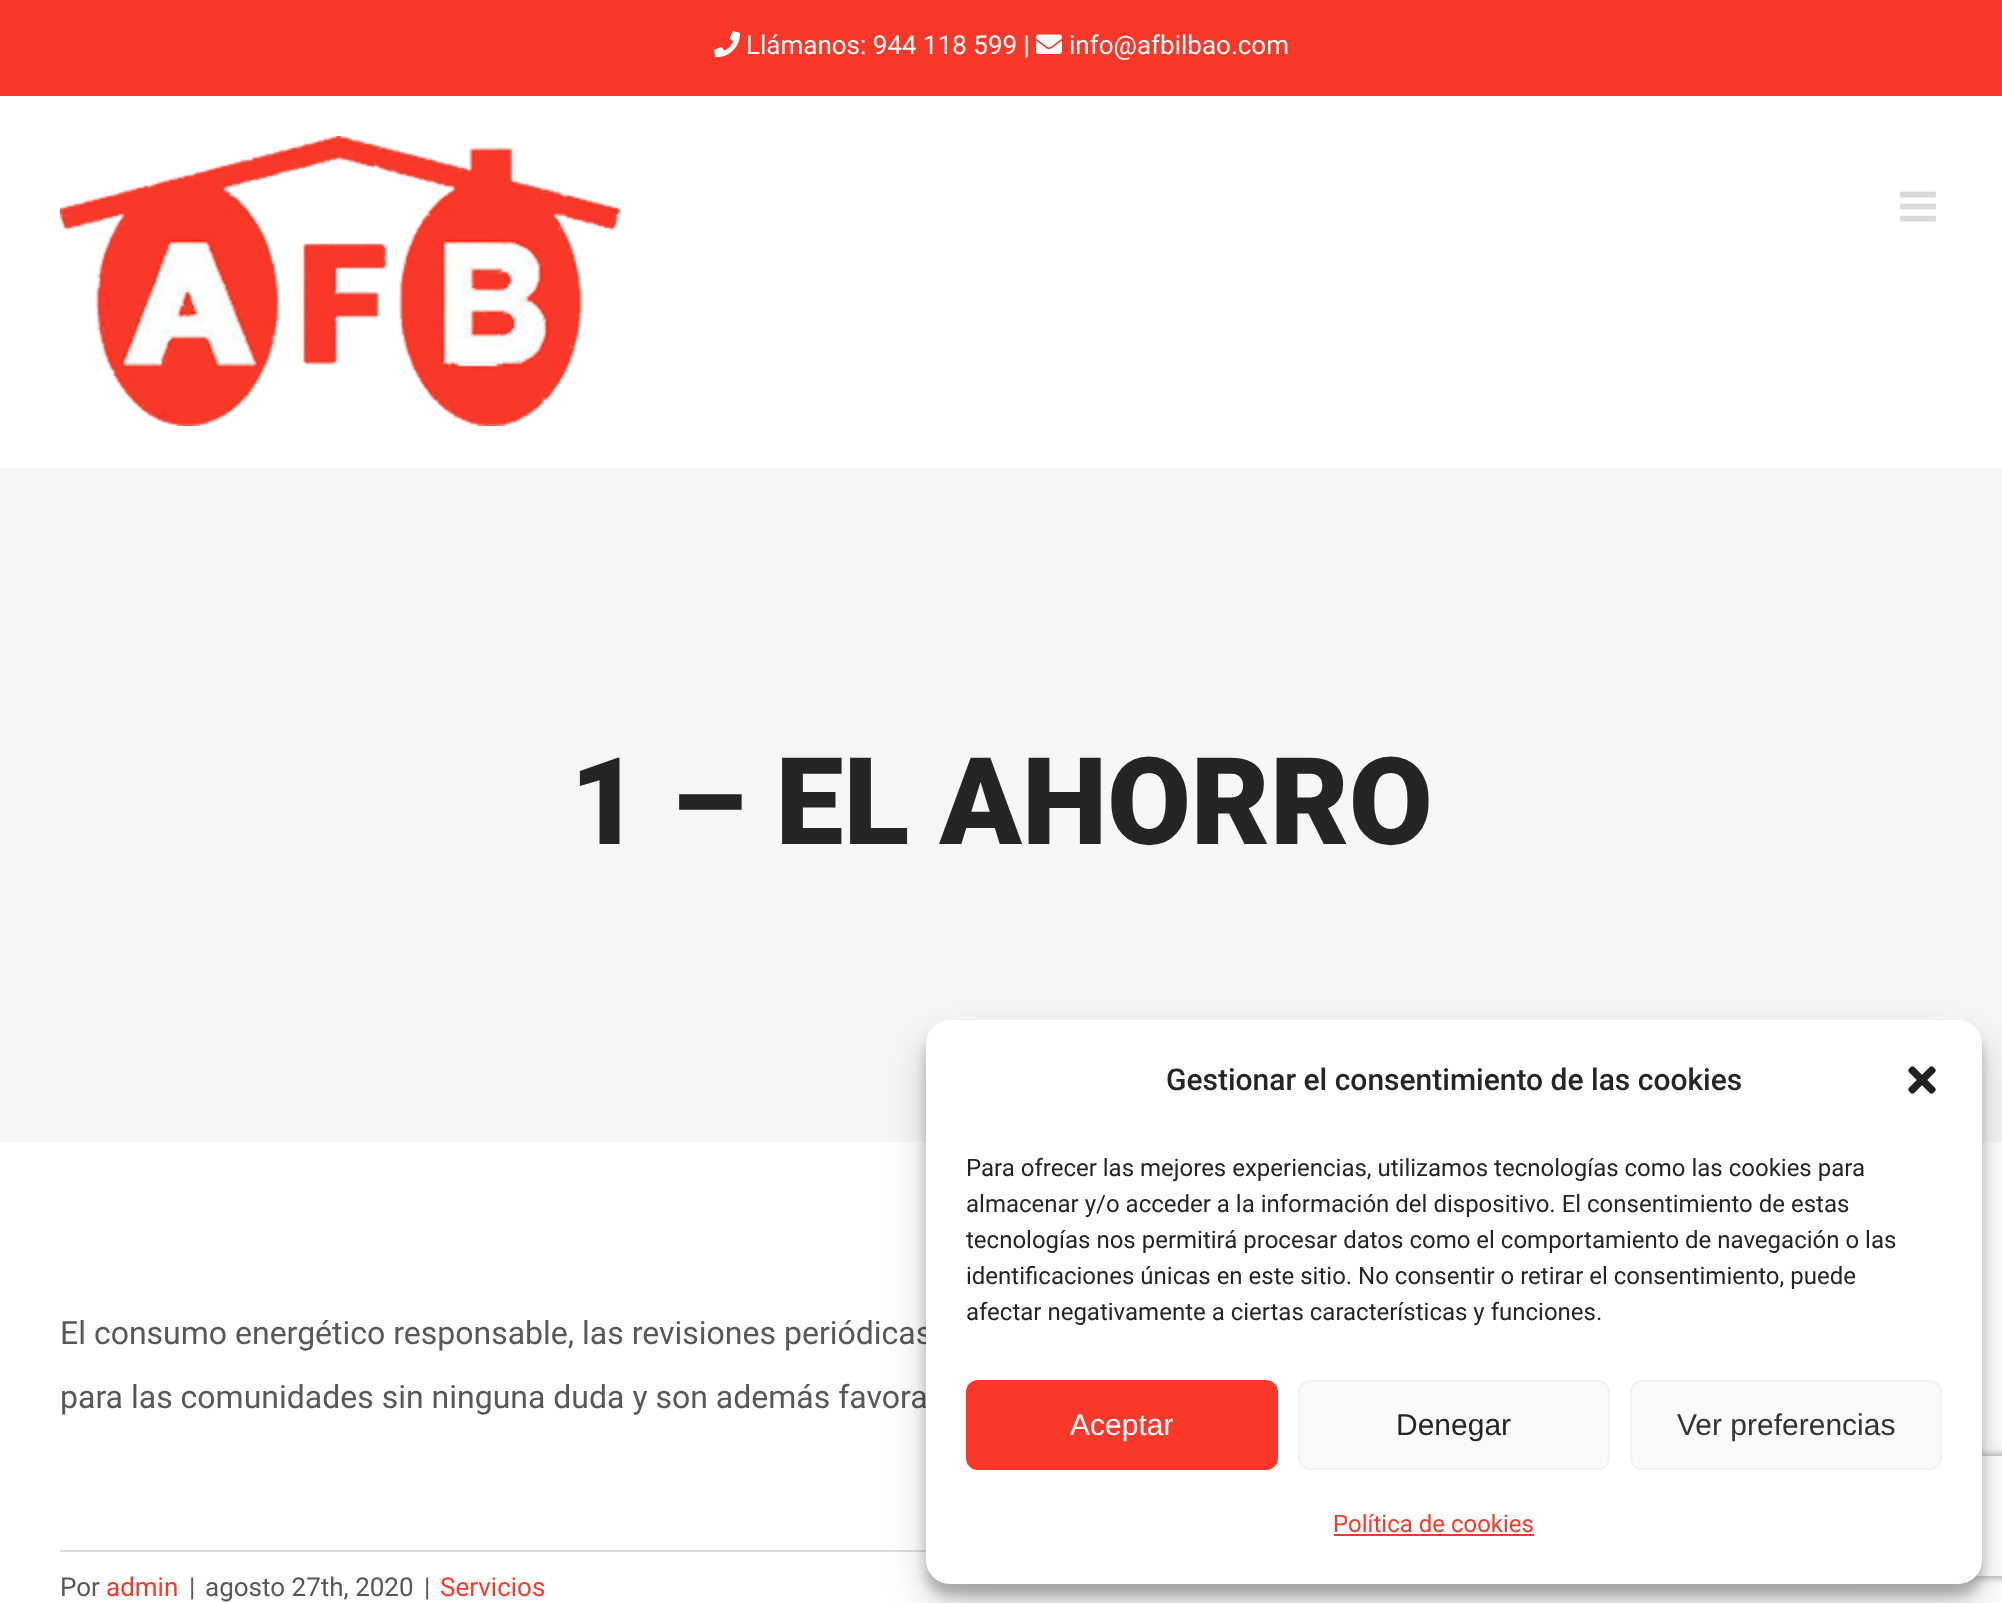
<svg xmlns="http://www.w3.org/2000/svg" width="2002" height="1603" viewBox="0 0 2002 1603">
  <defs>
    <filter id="blur1" x="-50%" y="-200%" width="200%" height="500%"><feGaussianBlur stdDeviation="6"/></filter>
    <filter id="blur2" x="-50%" y="-200%" width="200%" height="500%"><feGaussianBlur stdDeviation="20"/></filter>
    <clipPath id="clip1"><path d="M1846 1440H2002V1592H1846ZM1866 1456H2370C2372 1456 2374 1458 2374 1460V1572C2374 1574 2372 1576 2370 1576H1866C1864 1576 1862 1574 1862 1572V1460C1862 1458 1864 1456 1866 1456Z" clip-rule="evenodd"/></clipPath>
    <filter id="blur3" x="-50%" y="-200%" width="200%" height="500%"><feGaussianBlur stdDeviation="5"/></filter>
  </defs>
  <rect width="100%" height="100%" fill="#ffffff"/>
  <rect x="0" y="0" width="2002" height="96" fill="#f93829"/>
  <image x="714" y="31" width="26" height="27" href="img1.png"/>
  <text x="746" y="54" font-family="Roboto" font-size="26" fill="#ffffff">Llámanos: 944 118 599 |</text>
  <image x="1036" y="34" width="26" height="20" href="img2.png"/>
  <text x="1069" y="54" font-family="Roboto" font-size="26" fill="#ffffff">info@afbilbao.com</text>
  <image x="60" y="136" width="560" height="290" href="img3.png"/>
  <image x="1900" y="191" width="36" height="31" href="img4.png"/>
  <rect x="0" y="468" width="2002" height="674" fill="#f6f6f6"/>
  <text x="570" y="844" font-family="Roboto" font-size="121.25" font-weight="900" fill="#252525">1 – EL AHORRO</text>
  <text x="60" y="1344" font-family="Roboto" font-size="32" fill="#585858">El consumo energético responsable, las revisiones periódicas</text>
  <text x="60" y="1408" font-family="Roboto" font-size="32" fill="#585858">para las comunidades sin ninguna duda y son además favora</text>
  <rect x="60" y="1550" width="866" height="2" fill="#dddbdb"/>
  <text x="60" y="1596" font-family="Roboto" font-size="26" fill="#585858">Por</text>
  <text x="106" y="1596" font-family="Roboto" font-size="26" fill="#f93829">admin</text>
  <text x="189" y="1596" font-family="Roboto" font-size="26" fill="#585858">|</text>
  <text x="205" y="1596" font-family="Roboto" font-size="26" fill="#585858">agosto 27th, 2020</text>
  <text x="424" y="1596" font-family="Roboto" font-size="26" fill="#585858">|</text>
  <text x="440" y="1596" font-family="Roboto" font-size="26" fill="#f93829">Servicios</text>
  <rect x="926" y="1032" width="1056" height="564" rx="24" fill="#000000" fill-opacity="0.23" filter="url(#blur1)"/>
  <rect x="926" y="1040" width="1056" height="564" rx="24" fill="#000000" fill-opacity="0.19" filter="url(#blur2)"/>
  <g clip-path="url(#clip1)">
    <rect x="1862" y="1456" width="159" height="120" rx="4" fill="#808080" filter="url(#blur3)"/>
  </g>
  <rect x="926" y="1020" width="1056" height="564" rx="24" fill="#ffffff"/>
  <text x="1166" y="1090" font-family="Roboto" font-size="30" font-weight="500" fill="#252525">Gestionar el consentimiento de las cookies</text>
  <image x="1908" y="1066" width="28" height="28" href="img5.png"/>
  <text x="966" y="1176" font-family="Roboto" font-size="24" fill="#252525">Para ofrecer las mejores experiencias, utilizamos tecnologías como las cookies para</text>
  <text x="966" y="1212" font-family="Roboto" font-size="24" fill="#252525">almacenar y/o acceder a la información del dispositivo. El consentimiento de estas</text>
  <text x="966" y="1248" font-family="Roboto" font-size="24" fill="#252525">tecnologías nos permitirá procesar datos como el comportamiento de navegación o las</text>
  <text x="966" y="1284" font-family="Roboto" font-size="24" fill="#252525">identificaciones únicas en este sitio. No consentir o retirar el consentimiento, puede</text>
  <text x="966" y="1320" font-family="Roboto" font-size="24" fill="#252525">afectar negativamente a ciertas características y funciones.</text>
  <rect x="967" y="1381" width="310" height="88" rx="11" fill="#f93829" stroke="#f93829" stroke-width="2"/>
  <text x="1070" y="1435" font-family="Liberation Sans" font-size="30" fill="#ffffff">Aceptar</text>
  <rect x="1299" y="1381" width="310" height="88" rx="11" fill="#f9f9f9" stroke="#f2f2f2" stroke-width="2"/>
  <text x="1396" y="1435" font-family="Liberation Sans" font-size="30" fill="#252525">Denegar</text>
  <rect x="1631" y="1381" width="310" height="88" rx="11" fill="#f9f9f9" stroke="#f2f2f2" stroke-width="2"/>
  <text x="1677" y="1435" font-family="Liberation Sans" font-size="30" fill="#333333">Ver preferencias</text>
  <text x="1333" y="1532" font-family="Roboto" font-size="24" fill="#f93829">Política de cookies</text>
  <rect x="1334" y="1534" width="200" height="2" fill="#f93829"/>
</svg>
